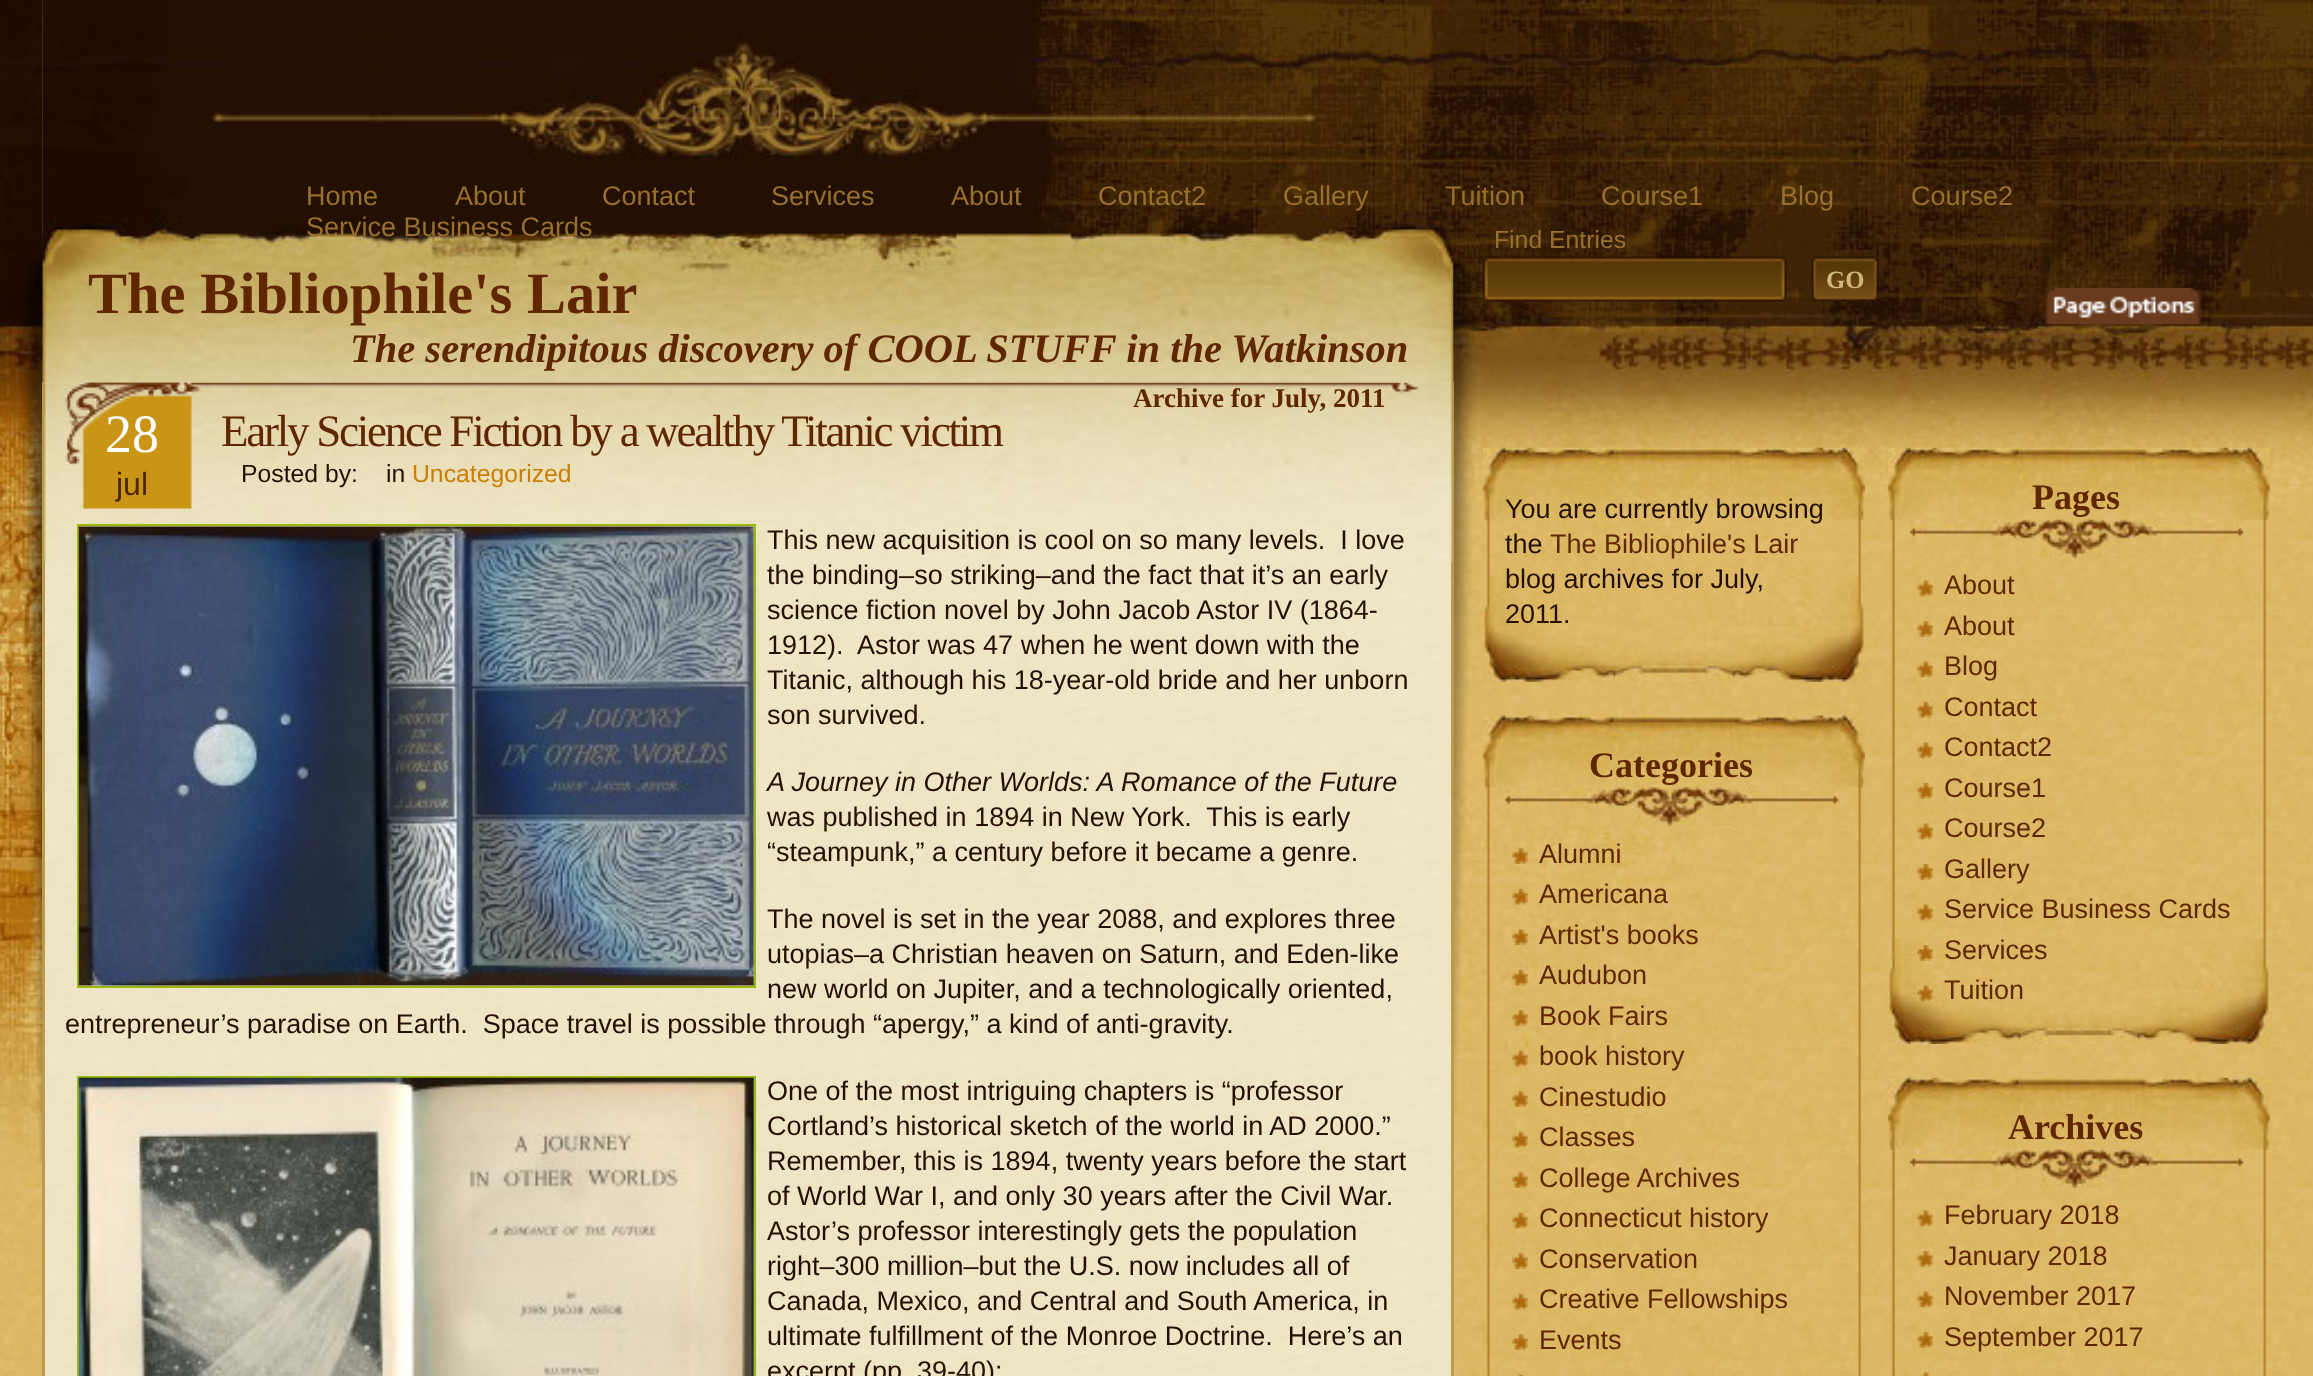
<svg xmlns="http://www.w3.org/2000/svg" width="2313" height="1376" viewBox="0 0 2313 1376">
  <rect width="100%" height="100%" fill="#ffffff"/>
  <image x="0" y="0" width="2313" height="1376" href="img1.png"/>
  <image x="0" y="0" width="43" height="382" href="img2.png"/>
  <image x="0" y="234" width="43" height="930" href="img3.png"/>
  <image x="1865" y="0" width="448" height="502" href="img11.png"/>
  <image x="42" y="0" width="2228" height="502" href="img4.png"/>
  <image x="42" y="0" width="1412" height="383" href="img6.png"/>
  <image x="1453" y="0" width="647" height="115" href="img5.png"/>
  <text x="306" y="205" font-family="Liberation Sans" font-size="27" fill="#97712c">Home</text>
  <text x="455" y="205" font-family="Liberation Sans" font-size="27" fill="#97712c">About</text>
  <text x="602" y="205" font-family="Liberation Sans" font-size="27" fill="#97712c">Contact</text>
  <text x="771" y="205" font-family="Liberation Sans" font-size="27" fill="#97712c">Services</text>
  <text x="951" y="205" font-family="Liberation Sans" font-size="27" fill="#97712c">About</text>
  <text x="1098" y="205" font-family="Liberation Sans" font-size="27" fill="#97712c">Contact2</text>
  <text x="1283" y="205" font-family="Liberation Sans" font-size="27" fill="#97712c">Gallery</text>
  <text x="1445" y="205" font-family="Liberation Sans" font-size="27" fill="#97712c">Tuition</text>
  <text x="1601" y="205" font-family="Liberation Sans" font-size="27" fill="#97712c">Course1</text>
  <text x="1780" y="205" font-family="Liberation Sans" font-size="27" fill="#97712c">Blog</text>
  <text x="1911" y="205" font-family="Liberation Sans" font-size="27" fill="#97712c">Course2</text>
  <text x="306" y="236" font-family="Liberation Sans" font-size="27" fill="#97712c">Service Business Cards</text>
  <text x="88" y="313" font-family="Liberation Serif" font-size="58.5" font-weight="bold" fill="#602600">The Bibliophile's Lair</text>
  <text x="350" y="362" font-family="Liberation Serif" font-size="40.5" font-weight="bold" font-style="italic" fill="#602600">The serendipitous discovery of COOL STUFF in the Watkinson</text>
  <text x="1494" y="248" font-family="Liberation Sans" font-size="24.75" fill="#97712c">Find Entries</text>
  <image x="1453" y="258" width="230" height="856" href="img9.png"/>
  <image x="1482" y="256" width="305" height="46" href="img7.png"/>
  <image x="1811" y="256" width="68" height="46" href="img8.png"/>
  <text x="1826" y="288" font-family="Liberation Serif" font-size="24.75" font-weight="bold" fill="#ceb978">GO</text>
  <image x="2045" y="288" width="156" height="36" href="img10.png"/>
  <image x="45" y="382" width="1406" height="994" href="img12.png"/>
  <rect x="1451" y="382" width="3" height="994" fill="#b99a4e"/>
  <rect x="42" y="382" width="3" height="994" fill="#b99a4e"/>
  <image x="43" y="382" width="1411" height="181" href="img13.png"/>
  <text x="1133" y="407" font-family="Liberation Serif" font-size="27" font-weight="bold" fill="#602600">Archive for July, 2011</text>
  <image x="65" y="382" width="1353" height="83" href="img14.png"/>
  <image x="65" y="382" width="133" height="127" href="img15.png"/>
  <text x="105" y="452" font-family="Liberation Serif" font-size="54" fill="#ffffff">28</text>
  <text x="116" y="495" font-family="Liberation Sans" font-size="32" fill="#4c2604">jul</text>
  <text x="221" y="446" font-family="Liberation Serif" font-size="45" letter-spacing="-2.25" fill="#602600">Early Science Fiction by a wealthy Titanic victim</text>
  <text x="241" y="482" font-family="Liberation Sans" font-size="24.75" fill="#240f02">Posted by:</text>
  <text x="386" y="482" font-family="Liberation Sans" font-size="24.75" fill="#240f02">in</text>
  <text x="412" y="482" font-family="Liberation Sans" font-size="24.75" fill="#c97e00">Uncategorized</text>
  <rect x="78" y="525" width="677" height="462" fill="none" stroke="#99ba09" stroke-width="2"/>
  <image x="78" y="526" width="676" height="460" href="img16.png"/>
  <text x="767" y="549" font-family="Liberation Sans" font-size="27" fill="#240f02" xml:space="preserve">This new acquisition is cool on so many levels.  I love</text>
  <text x="767" y="584" font-family="Liberation Sans" font-size="27" fill="#240f02">the binding–so striking–and the fact that it’s an early</text>
  <text x="767" y="619" font-family="Liberation Sans" font-size="27" fill="#240f02">science fiction novel by John Jacob Astor IV (1864-</text>
  <text x="767" y="654" font-family="Liberation Sans" font-size="27" fill="#240f02" xml:space="preserve">1912).  Astor was 47 when he went down with the</text>
  <text x="767" y="689" font-family="Liberation Sans" font-size="27" fill="#240f02">Titanic, although his 18-year-old bride and her unborn</text>
  <text x="767" y="724" font-family="Liberation Sans" font-size="27" fill="#240f02">son survived.</text>
  <text x="767" y="791" font-family="Liberation Sans" font-size="27" font-style="italic" fill="#240f02">A Journey in Other Worlds: A Romance of the Future</text>
  <text x="767" y="826" font-family="Liberation Sans" font-size="27" fill="#240f02" xml:space="preserve">was published in 1894 in New York.  This is early</text>
  <text x="767" y="861" font-family="Liberation Sans" font-size="27" fill="#240f02">“steampunk,” a century before it became a genre.</text>
  <text x="767" y="928" font-family="Liberation Sans" font-size="27" fill="#240f02">The novel is set in the year 2088, and explores three</text>
  <text x="767" y="963" font-family="Liberation Sans" font-size="27" fill="#240f02">utopias–a Christian heaven on Saturn, and Eden-like</text>
  <text x="767" y="998" font-family="Liberation Sans" font-size="27" fill="#240f02">new world on Jupiter, and a technologically oriented,</text>
  <text x="65" y="1033" font-family="Liberation Sans" font-size="27" fill="#240f02" xml:space="preserve">entrepreneur’s paradise on Earth.  Space travel is possible through “apergy,” a kind of anti-gravity.</text>
  <rect x="78" y="1077" width="677" height="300" fill="none" stroke="#99ba09" stroke-width="2"/>
  <image x="78" y="1077" width="676" height="299" href="img17.png"/>
  <text x="767" y="1100" font-family="Liberation Sans" font-size="27" fill="#240f02">One of the most intriguing chapters is “professor</text>
  <text x="767" y="1135" font-family="Liberation Sans" font-size="27" fill="#240f02">Cortland’s historical sketch of the world in AD 2000.”</text>
  <text x="767" y="1170" font-family="Liberation Sans" font-size="27" fill="#240f02">Remember, this is 1894, twenty years before the start</text>
  <text x="767" y="1205" font-family="Liberation Sans" font-size="27" fill="#240f02">of World War I, and only 30 years after the Civil War.</text>
  <text x="767" y="1240" font-family="Liberation Sans" font-size="27" fill="#240f02">Astor’s professor interestingly gets the population</text>
  <text x="767" y="1275" font-family="Liberation Sans" font-size="27" fill="#240f02">right–300 million–but the U.S. now includes all of</text>
  <text x="767" y="1310" font-family="Liberation Sans" font-size="27" fill="#240f02">Canada, Mexico, and Central and South America, in</text>
  <text x="767" y="1345" font-family="Liberation Sans" font-size="27" fill="#240f02" xml:space="preserve">ultimate fulfillment of the Monroe Doctrine.  Here’s an</text>
  <text x="767" y="1380" font-family="Liberation Sans" font-size="27" fill="#240f02">excerpt (pp. 39-40):</text>
  <image x="1482" y="648" width="383" height="34" href="img18.png"/>
  <image x="1482" y="447" width="384" height="64" href="img19.png"/>
  <image x="1858" y="447" width="4" height="235" href="img20.png"/>
  <image x="1486" y="447" width="5" height="235" href="img21.png"/>
  <image x="1703" y="576" width="162" height="106" href="img22.png"/>
  <image x="1483" y="576" width="160" height="106" href="img23.png"/>
  <image x="1730" y="447" width="136" height="73" href="img24.png"/>
  <image x="1482" y="447" width="136" height="73" href="img25.png"/>
  <text x="1505" y="518" font-family="Liberation Sans" font-size="27" fill="#240f02">You are currently browsing</text>
  <text x="1505" y="553" font-family="Liberation Sans" font-size="27" fill="#240f02">the</text>
  <text x="1550" y="553" font-family="Liberation Sans" font-size="27" fill="#602600">The Bibliophile's Lair</text>
  <text x="1505" y="588" font-family="Liberation Sans" font-size="27" fill="#240f02">blog archives for July,</text>
  <text x="1505" y="623" font-family="Liberation Sans" font-size="27" fill="#240f02">2011.</text>
  <image x="1482" y="715" width="384" height="64" href="img26.png"/>
  <image x="1858" y="715" width="4" height="661" href="img27.png"/>
  <image x="1486" y="715" width="5" height="661" href="img28.png"/>
  <image x="1730" y="715" width="136" height="73" href="img29.png"/>
  <image x="1482" y="715" width="136" height="73" href="img30.png"/>
  <image x="1505" y="787" width="334" height="39" href="img31.png"/>
  <text x="1589" y="777" font-family="Liberation Serif" font-size="36" font-weight="bold" fill="#602600">Categories</text>
  <image x="1512" y="848" width="16" height="16" href="img32.png"/>
  <text x="1539" y="863" font-family="Liberation Sans" font-size="27" fill="#602600">Alumni</text>
  <image x="1512" y="888" width="16" height="17" href="img33.png"/>
  <text x="1539" y="903" font-family="Liberation Sans" font-size="27" fill="#602600">Americana</text>
  <image x="1512" y="929" width="16" height="16" href="img34.png"/>
  <text x="1539" y="944" font-family="Liberation Sans" font-size="27" fill="#602600">Artist's books</text>
  <image x="1512" y="969" width="16" height="17" href="img35.png"/>
  <text x="1539" y="984" font-family="Liberation Sans" font-size="27" fill="#602600">Audubon</text>
  <image x="1512" y="1010" width="16" height="16" href="img36.png"/>
  <text x="1539" y="1025" font-family="Liberation Sans" font-size="27" fill="#602600">Book Fairs</text>
  <image x="1512" y="1050" width="16" height="17" href="img37.png"/>
  <text x="1539" y="1065" font-family="Liberation Sans" font-size="27" fill="#602600">book history</text>
  <image x="1512" y="1091" width="16" height="16" href="img38.png"/>
  <text x="1539" y="1106" font-family="Liberation Sans" font-size="27" fill="#602600">Cinestudio</text>
  <image x="1512" y="1131" width="16" height="17" href="img39.png"/>
  <text x="1539" y="1146" font-family="Liberation Sans" font-size="27" fill="#602600">Classes</text>
  <image x="1512" y="1172" width="16" height="16" href="img40.png"/>
  <text x="1539" y="1187" font-family="Liberation Sans" font-size="27" fill="#602600">College Archives</text>
  <image x="1512" y="1212" width="16" height="17" href="img41.png"/>
  <text x="1539" y="1227" font-family="Liberation Sans" font-size="27" fill="#602600">Connecticut history</text>
  <image x="1512" y="1253" width="16" height="16" href="img42.png"/>
  <text x="1539" y="1268" font-family="Liberation Sans" font-size="27" fill="#602600">Conservation</text>
  <image x="1512" y="1293" width="16" height="17" href="img43.png"/>
  <text x="1539" y="1308" font-family="Liberation Sans" font-size="27" fill="#602600">Creative Fellowships</text>
  <image x="1512" y="1334" width="16" height="16" href="img44.png"/>
  <text x="1539" y="1349" font-family="Liberation Sans" font-size="27" fill="#602600">Events</text>
  <image x="1518" y="1374" width="10" height="2" href="img45.png"/>
  <image x="2047" y="1010" width="62" height="34" href="img46.png"/>
  <image x="1887" y="447" width="384" height="64" href="img47.png"/>
  <image x="2263" y="447" width="4" height="492" href="img48.png"/>
  <image x="1891" y="447" width="5" height="492" href="img49.png"/>
  <image x="2108" y="938" width="162" height="106" href="img50.png"/>
  <image x="1888" y="938" width="160" height="106" href="img51.png"/>
  <image x="2135" y="447" width="136" height="73" href="img52.png"/>
  <image x="1887" y="447" width="136" height="73" href="img53.png"/>
  <image x="1910" y="519" width="334" height="39" href="img54.png"/>
  <text x="2032" y="509" font-family="Liberation Serif" font-size="36" font-weight="bold" fill="#602600">Pages</text>
  <image x="1917" y="580" width="16" height="17" href="img55.png"/>
  <text x="1944" y="594" font-family="Liberation Sans" font-size="27" fill="#602600">About</text>
  <image x="1917" y="621" width="16" height="16" href="img56.png"/>
  <text x="1944" y="635" font-family="Liberation Sans" font-size="27" fill="#602600">About</text>
  <image x="1917" y="661" width="16" height="17" href="img57.png"/>
  <text x="1944" y="675" font-family="Liberation Sans" font-size="27" fill="#602600">Blog</text>
  <image x="1917" y="702" width="16" height="16" href="img58.png"/>
  <text x="1944" y="716" font-family="Liberation Sans" font-size="27" fill="#602600">Contact</text>
  <image x="1917" y="742" width="16" height="17" href="img59.png"/>
  <text x="1944" y="756" font-family="Liberation Sans" font-size="27" fill="#602600">Contact2</text>
  <image x="1917" y="783" width="16" height="16" href="img60.png"/>
  <text x="1944" y="797" font-family="Liberation Sans" font-size="27" fill="#602600">Course1</text>
  <image x="1917" y="823" width="16" height="17" href="img61.png"/>
  <text x="1944" y="837" font-family="Liberation Sans" font-size="27" fill="#602600">Course2</text>
  <image x="1917" y="864" width="16" height="16" href="img62.png"/>
  <text x="1944" y="878" font-family="Liberation Sans" font-size="27" fill="#602600">Gallery</text>
  <image x="1917" y="904" width="16" height="17" href="img55.png"/>
  <text x="1944" y="918" font-family="Liberation Sans" font-size="27" fill="#602600">Service Business Cards</text>
  <image x="1917" y="945" width="16" height="16" href="img63.png"/>
  <text x="1944" y="959" font-family="Liberation Sans" font-size="27" fill="#602600">Services</text>
  <image x="1917" y="985" width="16" height="17" href="img64.png"/>
  <text x="1944" y="999" font-family="Liberation Sans" font-size="27" fill="#602600">Tuition</text>
  <image x="1887" y="1077" width="384" height="64" href="img65.png"/>
  <image x="2263" y="1077" width="4" height="299" href="img66.png"/>
  <image x="1891" y="1077" width="5" height="299" href="img67.png"/>
  <image x="2135" y="1077" width="136" height="73" href="img68.png"/>
  <image x="1887" y="1077" width="136" height="73" href="img69.png"/>
  <image x="1910" y="1149" width="334" height="39" href="img70.png"/>
  <text x="2008" y="1139" font-family="Liberation Serif" font-size="36" font-weight="bold" fill="#602600">Archives</text>
  <image x="1917" y="1210" width="16" height="17" href="img71.png"/>
  <text x="1944" y="1224" font-family="Liberation Sans" font-size="27" fill="#602600">February 2018</text>
  <image x="1917" y="1251" width="16" height="16" href="img72.png"/>
  <text x="1944" y="1265" font-family="Liberation Sans" font-size="27" fill="#602600">January 2018</text>
  <image x="1917" y="1291" width="16" height="17" href="img73.png"/>
  <text x="1944" y="1305" font-family="Liberation Sans" font-size="27" fill="#602600">November 2017</text>
  <image x="1917" y="1332" width="16" height="16" href="img74.png"/>
  <text x="1944" y="1346" font-family="Liberation Sans" font-size="27" fill="#602600">September 2017</text>
  <image x="1919" y="1372" width="12" height="4" href="img75.png"/>
</svg>
